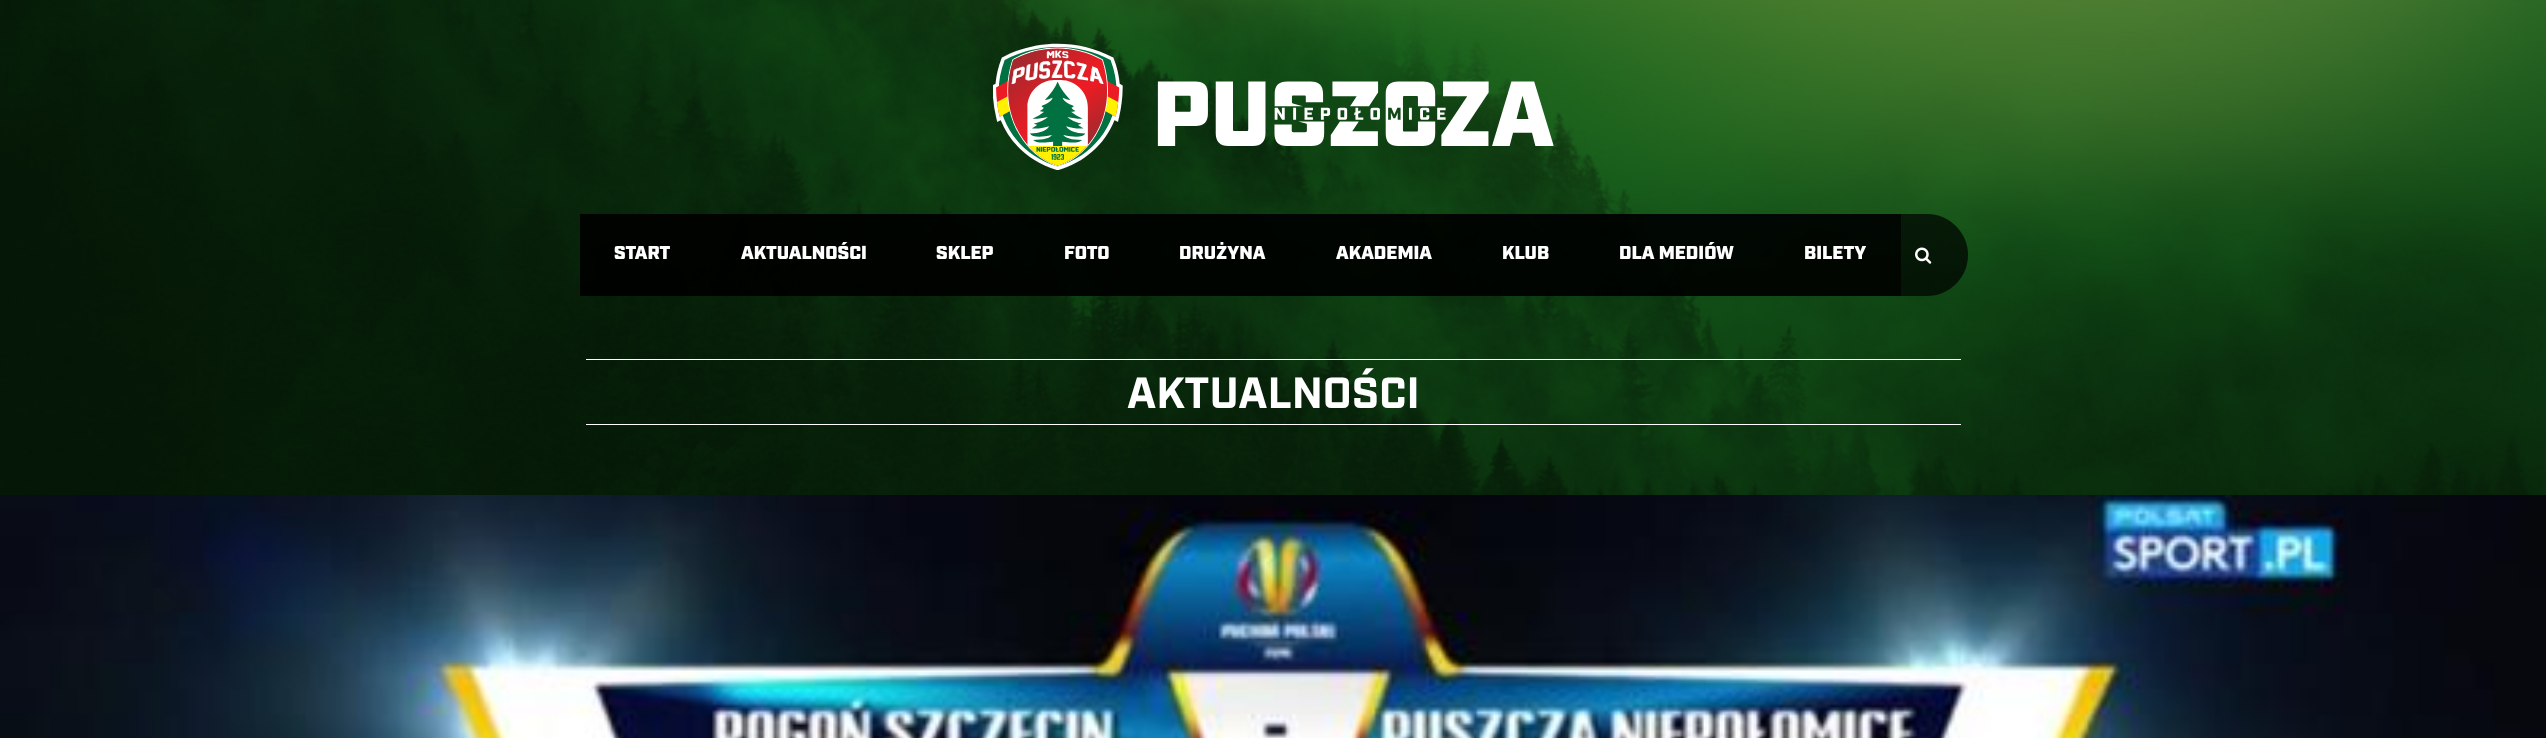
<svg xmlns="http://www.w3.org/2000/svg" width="2546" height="738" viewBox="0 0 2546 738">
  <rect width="100%" height="100%" fill="#ffffff"/>
  <image x="0" y="0" width="2546" height="495" href="img1.png"/>
  <image x="993" y="43" width="561" height="127" href="img2.png"/>
  <path d="M580 214H1927C1949.5 214 1968 232.5 1968 255C1968 277.5 1949.5 296 1927 296H580Z" fill="#000000" fill-opacity="0.7"/>
  <rect x="580" y="214" width="126" height="82" fill="#000000" fill-opacity="0.7"/>
  <text x="614" y="259" font-family="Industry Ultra" font-size="18.75" font-weight="900" fill="#ffffff">START</text>
  <rect x="706" y="214" width="195" height="82" fill="#000000" fill-opacity="0.7"/>
  <text x="741" y="259" font-family="Industry Ultra" font-size="18.75" font-weight="900" fill="#ffffff">AKTUALNOŚCI</text>
  <rect x="901" y="214" width="128" height="82" fill="#000000" fill-opacity="0.7"/>
  <text x="936" y="259" font-family="Industry Ultra" font-size="18.75" font-weight="900" fill="#ffffff">SKLEP</text>
  <rect x="1029" y="214" width="116" height="82" fill="#000000" fill-opacity="0.7"/>
  <text x="1064" y="259" font-family="Industry Ultra" font-size="18.75" font-weight="900" fill="#ffffff">FOTO</text>
  <rect x="1145" y="214" width="156" height="82" fill="#000000" fill-opacity="0.7"/>
  <text x="1179" y="259" font-family="Industry Ultra" font-size="18.75" font-weight="900" fill="#ffffff">DRUŻYNA</text>
  <rect x="1301" y="214" width="165" height="82" fill="#000000" fill-opacity="0.7"/>
  <text x="1336" y="259" font-family="Industry Ultra" font-size="18.75" font-weight="900" fill="#ffffff">AKADEMIA</text>
  <rect x="1466" y="214" width="118" height="82" fill="#000000" fill-opacity="0.7"/>
  <text x="1502" y="259" font-family="Industry Ultra" font-size="18.75" font-weight="900" fill="#ffffff">KLUB</text>
  <rect x="1584" y="214" width="185" height="82" fill="#000000" fill-opacity="0.7"/>
  <text x="1619" y="259" font-family="Industry Ultra" font-size="18.75" font-weight="900" fill="#ffffff">DLA MEDIÓW</text>
  <rect x="1769" y="214" width="132" height="82" fill="#000000" fill-opacity="0.7"/>
  <text x="1804" y="259" font-family="Industry Ultra" font-size="18.75" font-weight="900" fill="#ffffff">BILETY</text>
  <image x="1915" y="247" width="17" height="17" href="img3.png"/>
  <rect x="586" y="359" width="1375" height="1" fill="#ffffff"/>
  <text x="1127" y="408" font-family="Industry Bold" font-size="43.75" font-weight="bold" fill="#ffffff">AKTUALNOŚCI</text>
  <rect x="586" y="424" width="1375" height="1" fill="#ffffff"/>
  <image x="0" y="495" width="2546" height="243" href="img4.png"/>
</svg>
